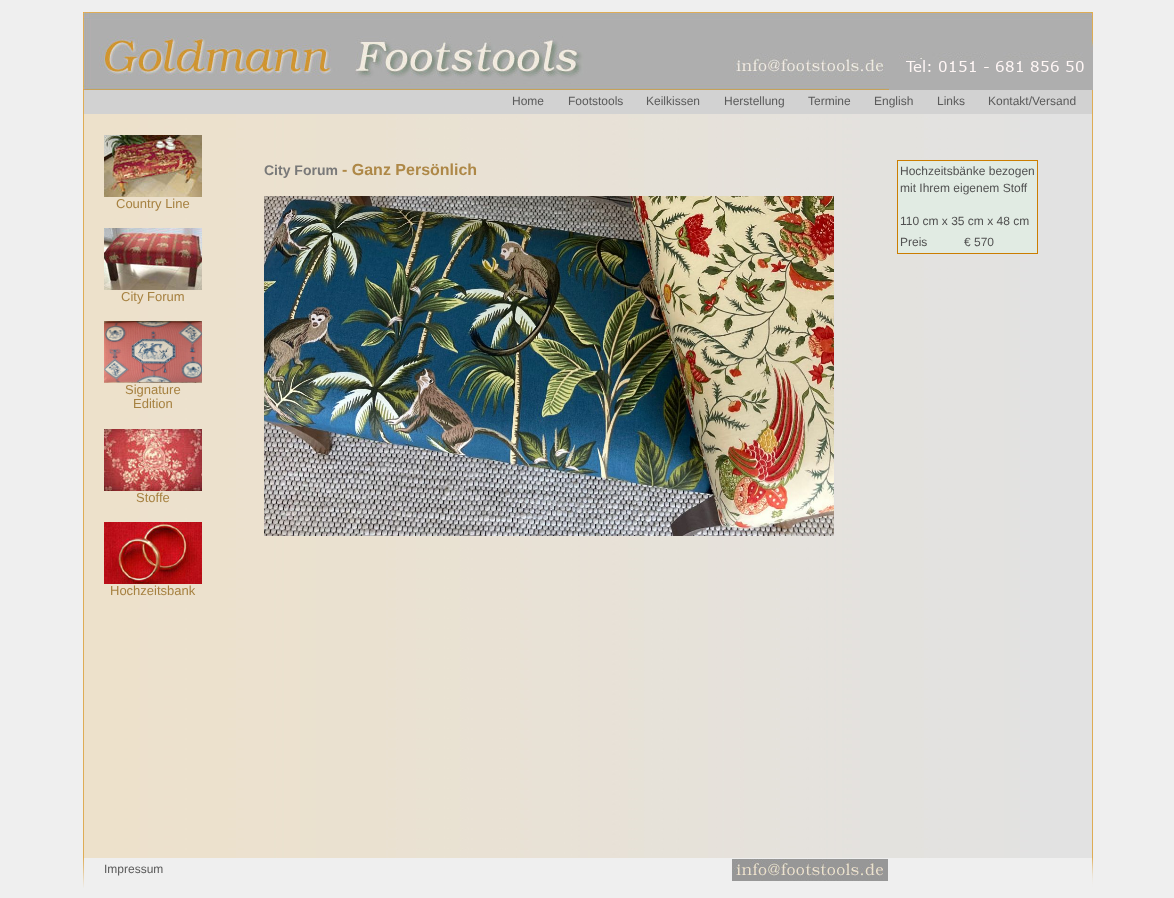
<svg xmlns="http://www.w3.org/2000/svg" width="1174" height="898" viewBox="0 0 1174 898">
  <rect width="100%" height="100%" fill="#efefef"/>
  <image x="84" y="114" width="1008" height="744" href="img1.png"/>
  <path d="M1093 90V888L1092 858V90Z" fill="#deac55"/>
  <path d="M1093 888H83L84 858H1092Z" fill="#efefef"/>
  <path d="M83 888V90H84V858Z" fill="#deac55"/>
  <image x="83" y="12" width="1010" height="78" href="img2.png"/>
  <image x="731" y="54" width="154" height="23" href="img3.png"/>
  <rect x="84" y="90" width="1008" height="24" fill="#d2d2d2"/>
  <text x="512" y="105" font-family="Liberation Sans" font-size="12" fill="#5a5a5a">Home</text>
  <text x="568" y="105" font-family="Liberation Sans" font-size="12" fill="#5a5a5a">Footstools</text>
  <text x="646" y="105" font-family="Liberation Sans" font-size="12" fill="#5a5a5a">Keilkissen</text>
  <text x="724" y="105" font-family="Liberation Sans" font-size="12" fill="#5a5a5a">Herstellung</text>
  <text x="808" y="105" font-family="Liberation Sans" font-size="12" fill="#5a5a5a">Termine</text>
  <text x="874" y="105" font-family="Liberation Sans" font-size="12" fill="#5a5a5a">English</text>
  <text x="937" y="105" font-family="Liberation Sans" font-size="12" fill="#5a5a5a">Links</text>
  <text x="988" y="105" font-family="Liberation Sans" font-size="12" fill="#5a5a5a">Kontakt/Versand</text>
  <image x="104" y="135" width="98" height="62" href="img4.png"/>
  <text x="116" y="208" font-family="Liberation Sans" font-size="13" fill="#a68140">Country Line</text>
  <image x="104" y="228" width="98" height="62" href="img5.png"/>
  <text x="121" y="301" font-family="Liberation Sans" font-size="13" fill="#a68140">City Forum</text>
  <image x="104" y="321" width="98" height="62" href="img6.png"/>
  <text x="125" y="394" font-family="Liberation Sans" font-size="13" fill="#a68140">Signature</text>
  <text x="133" y="408" font-family="Liberation Sans" font-size="13" fill="#a68140">Edition</text>
  <image x="104" y="429" width="98" height="62" href="img7.png"/>
  <text x="136" y="502" font-family="Liberation Sans" font-size="13" fill="#a68140">Stoffe</text>
  <image x="104" y="522" width="98" height="62" href="img8.png"/>
  <text x="110" y="595" font-family="Liberation Sans" font-size="13" fill="#a68140">Hochzeitsbank</text>
  <text x="264" y="175" font-family="Liberation Sans" font-size="14" font-weight="bold" fill="#797979">City Forum</text>
  <text x="342" y="175" font-family="Liberation Sans" font-size="16" font-weight="bold" fill="#ae8847">- Ganz Persönlich</text>
  <image x="264" y="196" width="570" height="340" href="img9.png"/>
  <rect x="897.5" y="160.5" width="140" height="93" fill="#e1ebe3" stroke="#cb7d00"/>
  <text x="900" y="175" font-family="Liberation Sans" font-size="12" fill="#515151">Hochzeitsbänke bezogen</text>
  <text x="900" y="192" font-family="Liberation Sans" font-size="12" fill="#515151">mit Ihrem eigenem Stoff</text>
  <text x="900" y="225" font-family="Liberation Sans" font-size="12" fill="#515151">110 cm x 35 cm x 48 cm</text>
  <text x="900" y="246" font-family="Liberation Sans" font-size="12" fill="#515151">Preis</text>
  <text x="964" y="246" font-family="Liberation Sans" font-size="12" fill="#515151">€ 570</text>
  <text x="104" y="873" font-family="Liberation Sans" font-size="12" fill="#5a5a5a">Impressum</text>
  <image x="732" y="859" width="156" height="22" href="img10.png"/>
</svg>
